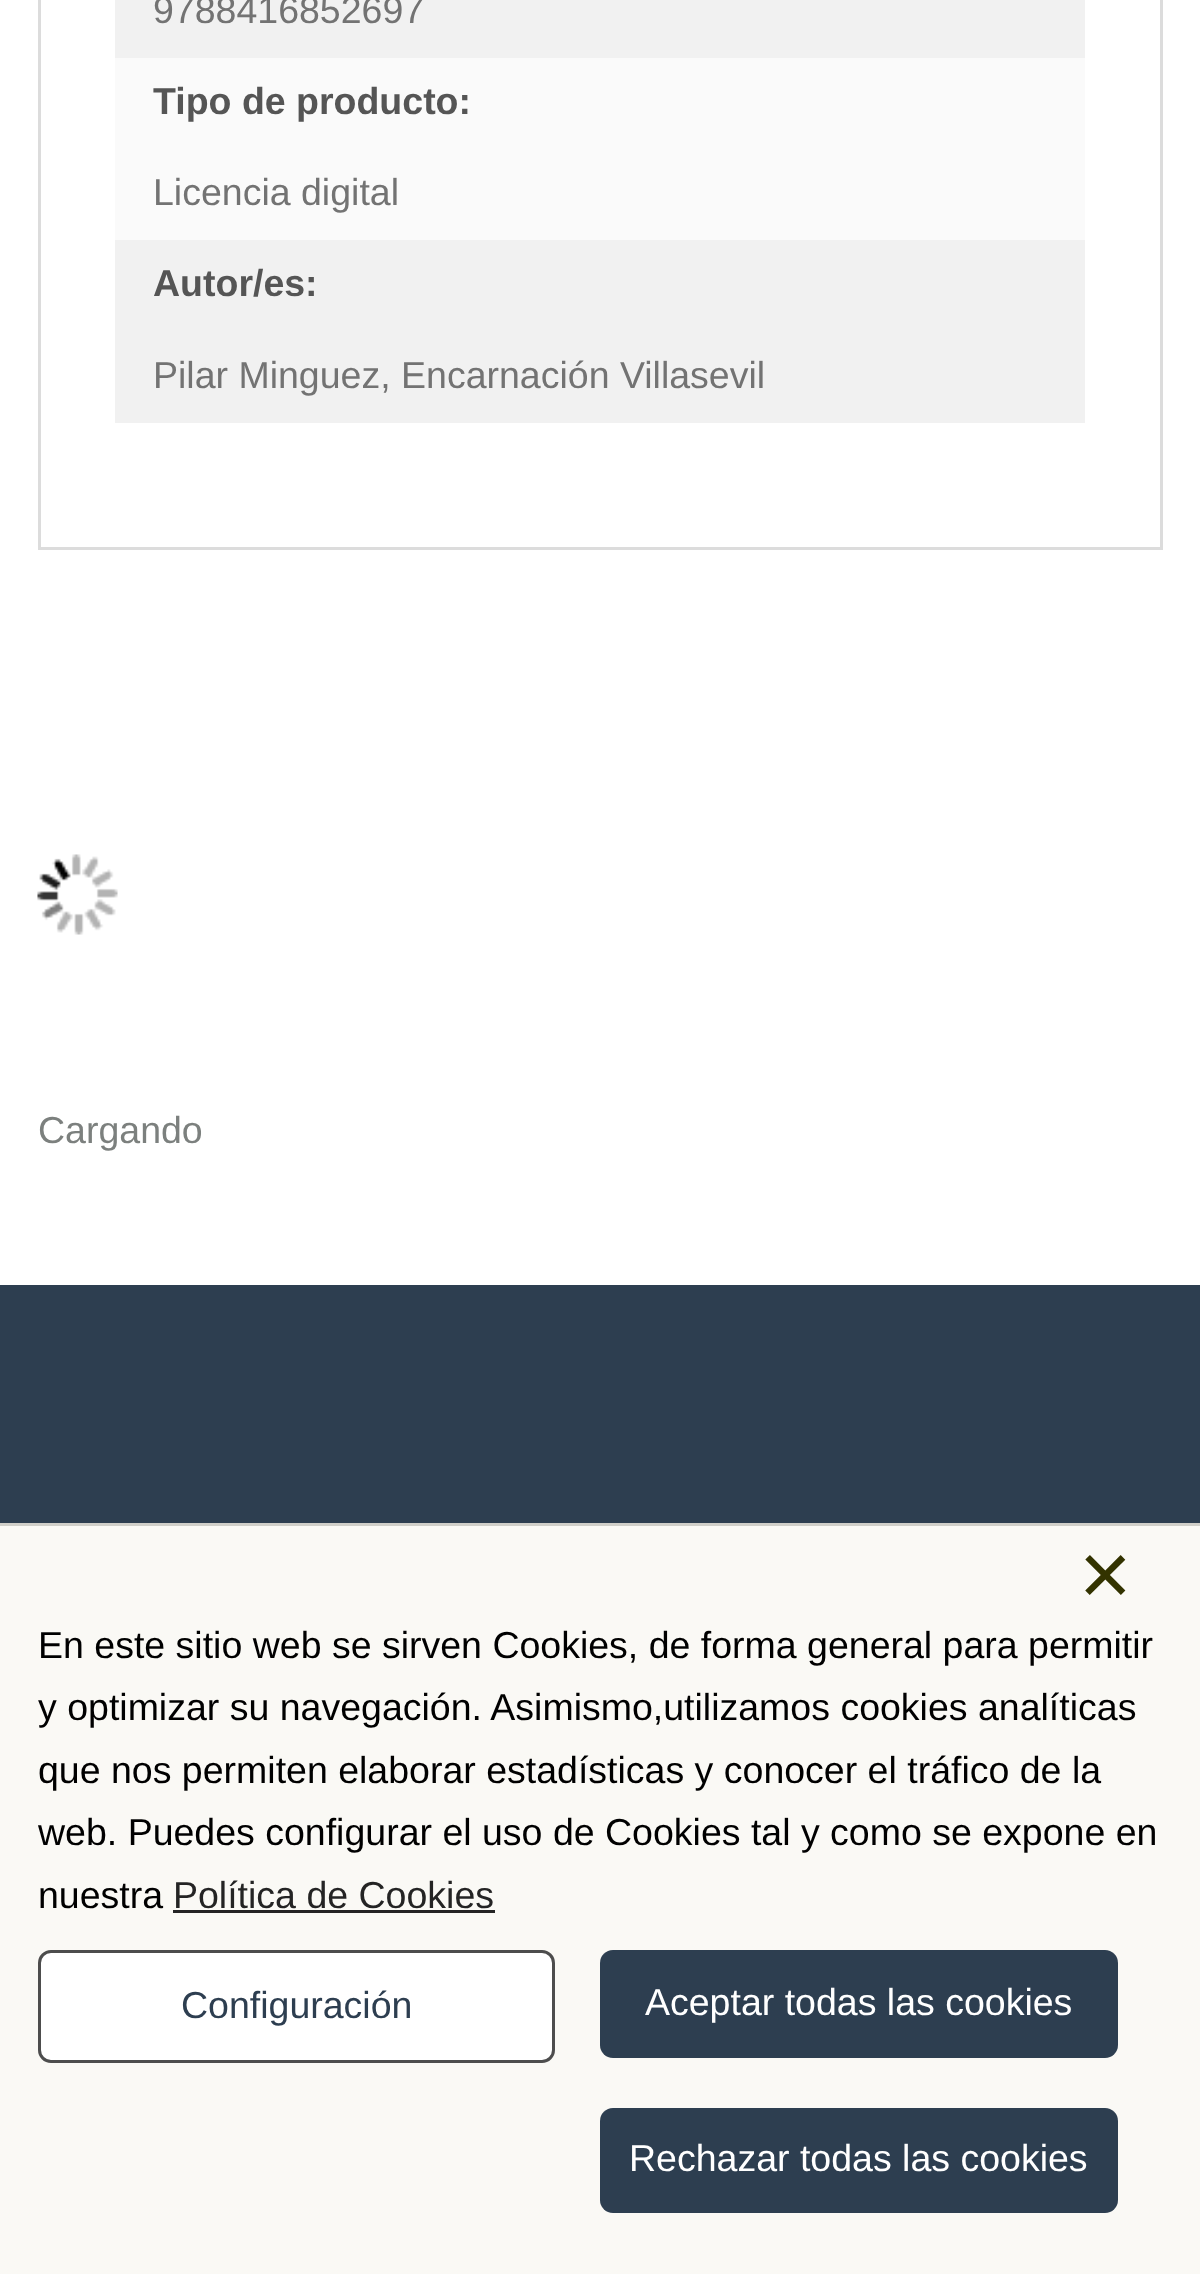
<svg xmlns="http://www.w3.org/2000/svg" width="1200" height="2274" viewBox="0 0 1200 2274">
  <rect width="100%" height="100%" fill="#ffffff"/>
  <rect x="39.5" y="-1.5" width="1122" height="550" fill="none" stroke="#dcdcdc" stroke-width="3"/>
  <rect x="115" y="0" width="970" height="58" fill="#f1f1f1"/>
  <text x="153" y="23" font-family="Liberation Sans" font-size="37.5" fill="#737373">9788416852697</text>
  <rect x="115" y="58" width="970" height="182" fill="#fafafa"/>
  <text x="153" y="114" font-family="Liberation Sans" font-size="37.5" font-weight="bold" fill="#555555">Tipo de producto:</text>
  <text x="153" y="205" font-family="Liberation Sans" font-size="37.5" fill="#737373">Licencia digital</text>
  <rect x="115" y="240" width="970" height="183" fill="#f1f1f1"/>
  <text x="153" y="296" font-family="Liberation Sans" font-size="37.5" font-weight="bold" fill="#555555">Autor/es:</text>
  <text x="153" y="388" font-family="Liberation Sans" font-size="37.5" fill="#737373">Pilar Minguez, Encarnación Villasevil</text>
  <image x="37" y="854" width="81" height="81" href="img1.png"/>
  <text x="38" y="1143" font-family="Liberation Sans" font-size="37.5" fill="#7c807e">Cargando</text>
  <rect x="0" y="1285" width="1200" height="238" fill="#2d3e50"/>
  <rect x="0" y="1526" width="1200" height="748" fill="#faf9f5"/>
  <rect x="0" y="1523" width="1200" height="3" fill="#d0cfc9"/>
  <text x="1079" y="1605" font-family="Liberation Sans" font-size="90" fill="#333300">×</text>
  <text x="38" y="1658" font-family="Liberation Sans" font-size="37.5" fill="#000000">En este sitio web se sirven Cookies, de forma general para permitir</text>
  <text x="38" y="1720" font-family="Liberation Sans" font-size="37.5" fill="#000000">y optimizar su navegación. Asimismo,utilizamos cookies analíticas</text>
  <text x="38" y="1783" font-family="Liberation Sans" font-size="37.5" fill="#000000">que nos permiten elaborar estadísticas y conocer el tráfico de la</text>
  <text x="38" y="1845" font-family="Liberation Sans" font-size="37.5" fill="#000000">web. Puedes configurar el uso de Cookies tal y como se expone en</text>
  <text x="38" y="1908" font-family="Liberation Sans" font-size="37.5" fill="#000000">nuestra</text>
  <text x="173" y="1908" font-family="Liberation Sans" font-size="37.5" fill="#242424">Política de Cookies</text>
  <rect x="173" y="1910" width="322" height="3" fill="#242424"/>
  <rect x="39.5" y="1951.5" width="514" height="110" rx="11.5" fill="#ffffff" stroke="#4d4d4d" stroke-width="3"/>
  <text x="181" y="2018" font-family="Liberation Sans" font-size="37.5" fill="#2d3e50">Configuración</text>
  <rect x="600" y="1950" width="518" height="108" rx="13" fill="#2d3e50"/>
  <text x="645" y="2015" font-family="Liberation Sans" font-size="37.5" fill="#ffffff">Aceptar todas las cookies</text>
  <rect x="600" y="2108" width="518" height="105" rx="13" fill="#2d3e50"/>
  <text x="629" y="2171" font-family="Liberation Sans" font-size="37.5" fill="#ffffff">Rechazar todas las cookies</text>
</svg>
